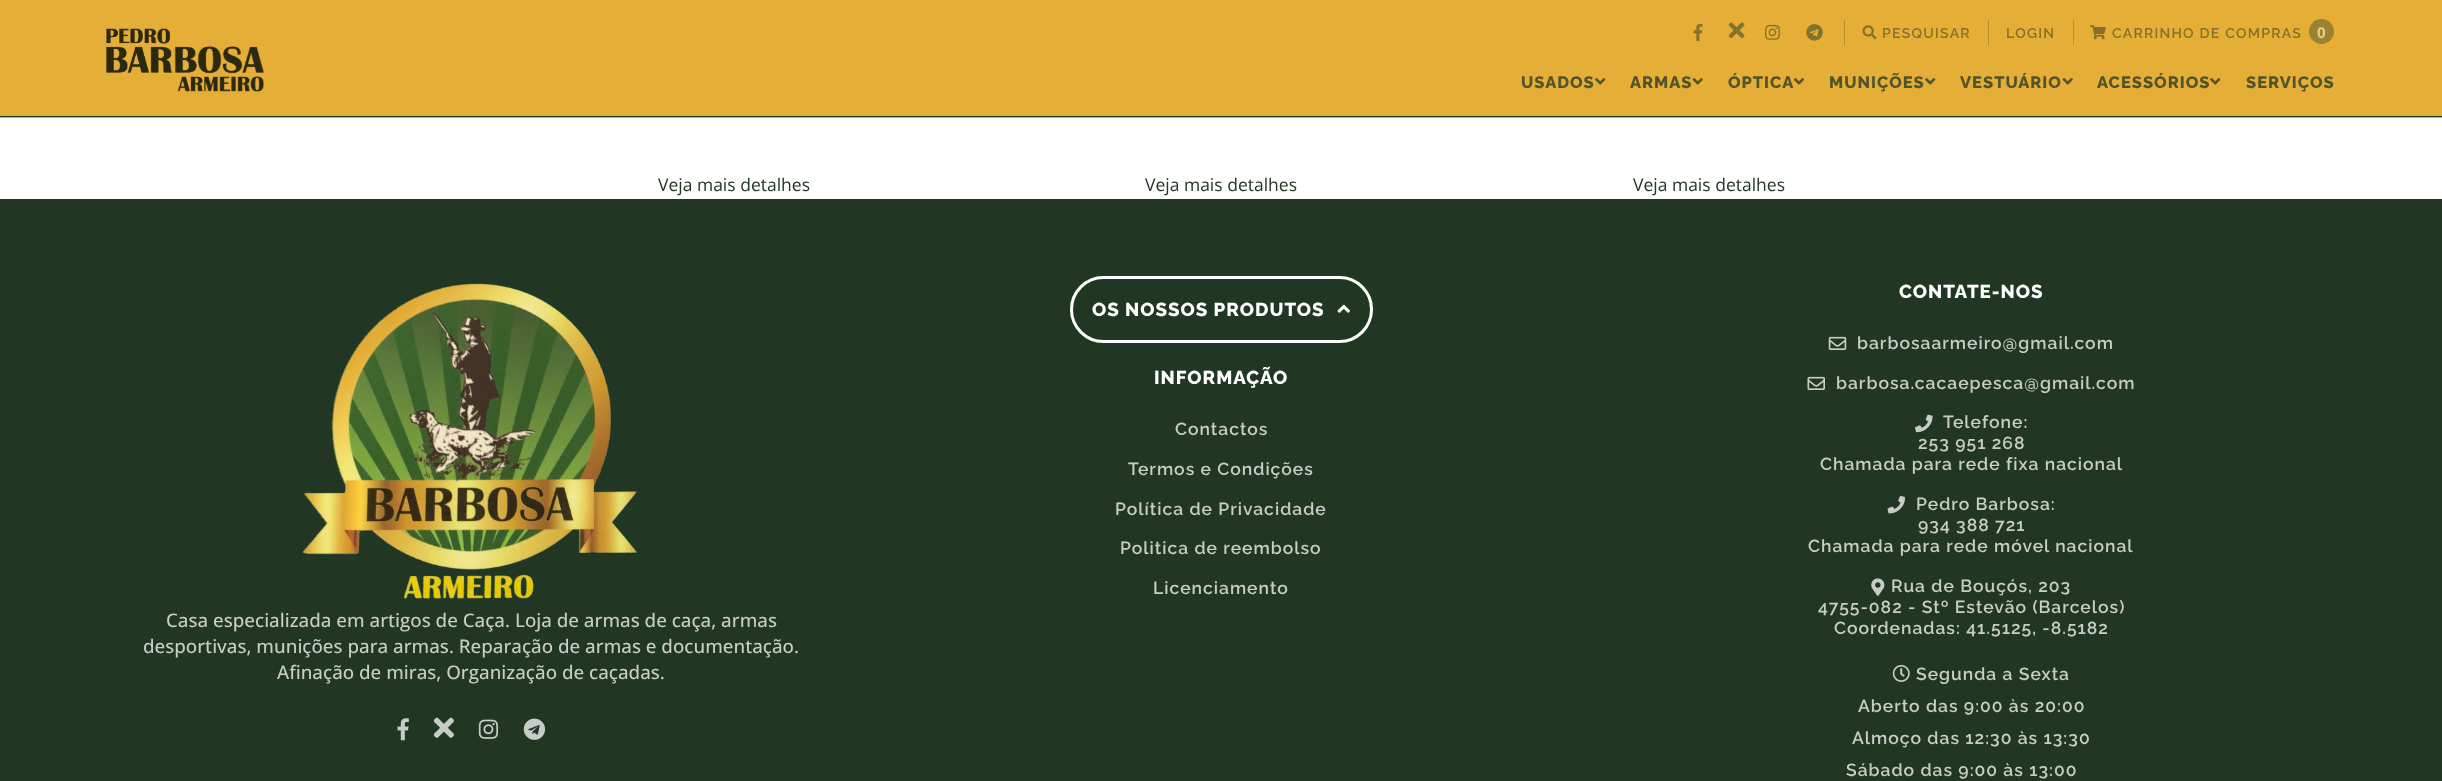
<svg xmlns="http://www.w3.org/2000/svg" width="2442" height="781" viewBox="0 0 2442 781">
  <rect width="100%" height="100%" fill="#213623"/>
  <rect x="0" y="0" width="2442" height="118" fill="#e4ae37"/>
  <rect x="0" y="116" width="2442" height="1" fill="#213623"/>
  <image x="106" y="28" width="158" height="64" href="img1.png"/>
  <image x="1693" y="23" width="10" height="18" href="img2.png"/>
  <image x="1728" y="22" width="17" height="16" href="img3.png"/>
  <image x="1765" y="24" width="15" height="16" href="img4.png"/>
  <image x="1806" y="24" width="17" height="17" href="img5.png"/>
  <rect x="1844" y="20" width="1" height="25" fill="#b39032"/>
  <image x="1862" y="25" width="15" height="15" href="img6.png"/>
  <text x="1882" y="38" font-family="Raleway" font-size="14" font-weight="600" letter-spacing="1.25" fill="#83722d">PESQUISAR</text>
  <rect x="1988" y="20" width="1" height="25" fill="#b39032"/>
  <text x="2006" y="38" font-family="Raleway" font-size="14" font-weight="600" letter-spacing="1.25" fill="#83722d">LOGIN</text>
  <rect x="2073" y="20" width="1" height="25" fill="#b39032"/>
  <image x="2090" y="25" width="16" height="15" href="img7.png"/>
  <text x="2112" y="38" font-family="Raleway" font-size="14" font-weight="600" letter-spacing="1.25" fill="#83722d">CARRINHO DE COMPRAS</text>
  <circle cx="2321.5" cy="31.5" r="12.5" fill="#9b8130"/>
  <text x="2317" y="38" font-family="Open Sans" font-size="15" font-weight="bold" letter-spacing="1.25" fill="#eecc82">0</text>
  <text x="1521" y="88" font-family="Raleway" font-size="16.5" font-weight="800" letter-spacing="1" fill="#525428">USADOS</text>
  <image x="1595" y="78" width="11" height="7" href="img8.png"/>
  <text x="1630" y="88" font-family="Raleway" font-size="16.5" font-weight="800" letter-spacing="1" fill="#525428">ARMAS</text>
  <image x="1692" y="78" width="11" height="7" href="img9.png"/>
  <text x="1728" y="88" font-family="Raleway" font-size="16.5" font-weight="800" letter-spacing="1" fill="#525428">ÓPTICA</text>
  <image x="1793" y="78" width="11" height="7" href="img10.png"/>
  <text x="1829" y="88" font-family="Raleway" font-size="16.5" font-weight="800" letter-spacing="1" fill="#525428">MUNIÇÕES</text>
  <image x="1925" y="78" width="11" height="7" href="img8.png"/>
  <text x="1960" y="88" font-family="Raleway" font-size="16.5" font-weight="800" letter-spacing="1" fill="#525428">VESTUÁRIO</text>
  <image x="2062" y="78" width="11" height="7" href="img9.png"/>
  <text x="2097" y="88" font-family="Raleway" font-size="16.5" font-weight="800" letter-spacing="1" fill="#525428">ACESSÓRIOS</text>
  <image x="2210" y="78" width="11" height="7" href="img8.png"/>
  <text x="2246" y="88" font-family="Raleway" font-size="16.5" font-weight="800" letter-spacing="1" fill="#525428">SERVIÇOS</text>
  <rect x="0" y="118" width="2442" height="81" fill="#ffffff"/>
  <text x="658" y="191" font-family="Open Sans" font-size="17.5" fill="#213623">Veja mais detalhes</text>
  <text x="1145" y="191" font-family="Open Sans" font-size="17.5" fill="#213623">Veja mais detalhes</text>
  <text x="1633" y="191" font-family="Open Sans" font-size="17.5" fill="#213623">Veja mais detalhes</text>
  <rect x="1071.5" y="277.5" width="300" height="64" rx="32" fill="none" stroke="#ffffff" stroke-width="3"/>
  <text x="1092" y="316" font-family="Raleway" font-size="18.75" font-weight="800" letter-spacing="1" fill="#ffffff">OS NOSSOS PRODUTOS</text>
  <image x="1337" y="304" width="13" height="9" href="img11.png"/>
  <text x="1154" y="384" font-family="Raleway" font-size="18.75" font-weight="800" letter-spacing="1" fill="#ffffff">INFORMAÇÃO</text>
  <text x="1175" y="435" font-family="Raleway" font-size="17.5" font-weight="600" letter-spacing="1" fill="#c8cdc8">Contactos</text>
  <text x="1128" y="475" font-family="Raleway" font-size="17.5" font-weight="600" letter-spacing="1" fill="#c8cdc8">Termos e Condições</text>
  <text x="1115" y="515" font-family="Raleway" font-size="17.5" font-weight="600" letter-spacing="1" fill="#c8cdc8">Política de Privacidade</text>
  <text x="1120" y="554" font-family="Raleway" font-size="17.5" font-weight="600" letter-spacing="1" fill="#c8cdc8">Politica de reembolso</text>
  <text x="1153" y="594" font-family="Raleway" font-size="17.5" font-weight="600" letter-spacing="1" fill="#c8cdc8">Licenciamento</text>
  <text x="1899" y="298" font-family="Raleway" font-size="18.75" font-weight="800" letter-spacing="1" fill="#ffffff">CONTATE-NOS</text>
  <image x="1828" y="336" width="19" height="14" href="img12.png"/>
  <text x="1857" y="349" font-family="Raleway" font-size="17.5" font-weight="600" letter-spacing="1" fill="#c8cdc8">barbosaarmeiro@gmail.com</text>
  <image x="1807" y="376" width="18" height="14" href="img13.png"/>
  <text x="1836" y="389" font-family="Raleway" font-size="17.5" font-weight="600" letter-spacing="1" fill="#c8cdc8">barbosa.cacaepesca@gmail.com</text>
  <image x="1915" y="414" width="18" height="19" href="img14.png"/>
  <text x="1943" y="428" font-family="Raleway" font-size="17.5" font-weight="600" letter-spacing="1" fill="#c8cdc8">Telefone:</text>
  <text x="1918" y="449" font-family="Raleway" font-size="17.5" font-weight="600" letter-spacing="1" fill="#c8cdc8">253 951 268</text>
  <text x="1820" y="470" font-family="Raleway" font-size="17.5" font-weight="600" letter-spacing="1" fill="#c8cdc8">Chamada para rede fixa nacional</text>
  <image x="1887" y="496" width="18" height="18" href="img15.png"/>
  <text x="1916" y="510" font-family="Raleway" font-size="17.5" font-weight="600" letter-spacing="1" fill="#c8cdc8">Pedro Barbosa:</text>
  <text x="1918" y="531" font-family="Raleway" font-size="17.5" font-weight="600" letter-spacing="1" fill="#c8cdc8">934 388 721</text>
  <text x="1808" y="552" font-family="Raleway" font-size="17.5" font-weight="600" letter-spacing="1" fill="#c8cdc8">Chamada para rede móvel nacional</text>
  <image x="1871" y="578" width="14" height="18" href="img16.png"/>
  <text x="1891" y="592" font-family="Raleway" font-size="17.5" font-weight="600" letter-spacing="1" fill="#c8cdc8">Rua de Bouçós, 203</text>
  <text x="1818" y="613" font-family="Raleway" font-size="17.5" font-weight="600" letter-spacing="1" fill="#c8cdc8">4755-082 - Stº Estevão (Barcelos)</text>
  <text x="1834" y="634" font-family="Raleway" font-size="17.5" font-weight="600" letter-spacing="1" fill="#c8cdc8">Coordenadas: 41.5125, -8.5182</text>
  <image x="1892" y="665" width="18" height="17" href="img17.png"/>
  <text x="1916" y="680" font-family="Raleway" font-size="17.5" font-weight="600" letter-spacing="1" fill="#c8cdc8">Segunda a Sexta</text>
  <text x="1858" y="712" font-family="Raleway" font-size="17.5" font-weight="600" letter-spacing="1" fill="#c8cdc8">Aberto das 9:00 às 20:00</text>
  <text x="1852" y="744" font-family="Raleway" font-size="17.5" font-weight="600" letter-spacing="1" fill="#c8cdc8">Almoço das 12:30 às 13:30</text>
  <text x="1846" y="776" font-family="Raleway" font-size="17.5" font-weight="600" letter-spacing="1" fill="#c8cdc8">Sábado das 9:00 às 13:00</text>
  <image x="302" y="283" width="335" height="316" href="img18.png"/>
  <text x="166" y="627" font-family="Open Sans" font-size="18.75" font-weight="500" fill="#c8cdc8">Casa especializada em artigos de Caça. Loja de armas de caça, armas</text>
  <text x="143" y="653" font-family="Open Sans" font-size="18.75" font-weight="500" fill="#c8cdc8">desportivas, munições para armas. Reparação de armas e documentação.</text>
  <text x="277" y="679" font-family="Open Sans" font-size="18.75" font-weight="500" fill="#c8cdc8">Afinação de miras, Organização de caçadas.</text>
  <image x="397" y="718" width="12" height="23" href="img19.png"/>
  <image x="433" y="717" width="21" height="21" href="img20.png"/>
  <image x="478" y="719" width="21" height="20" href="img21.png"/>
  <image x="523" y="718" width="23" height="22" href="img22.png"/>
</svg>
